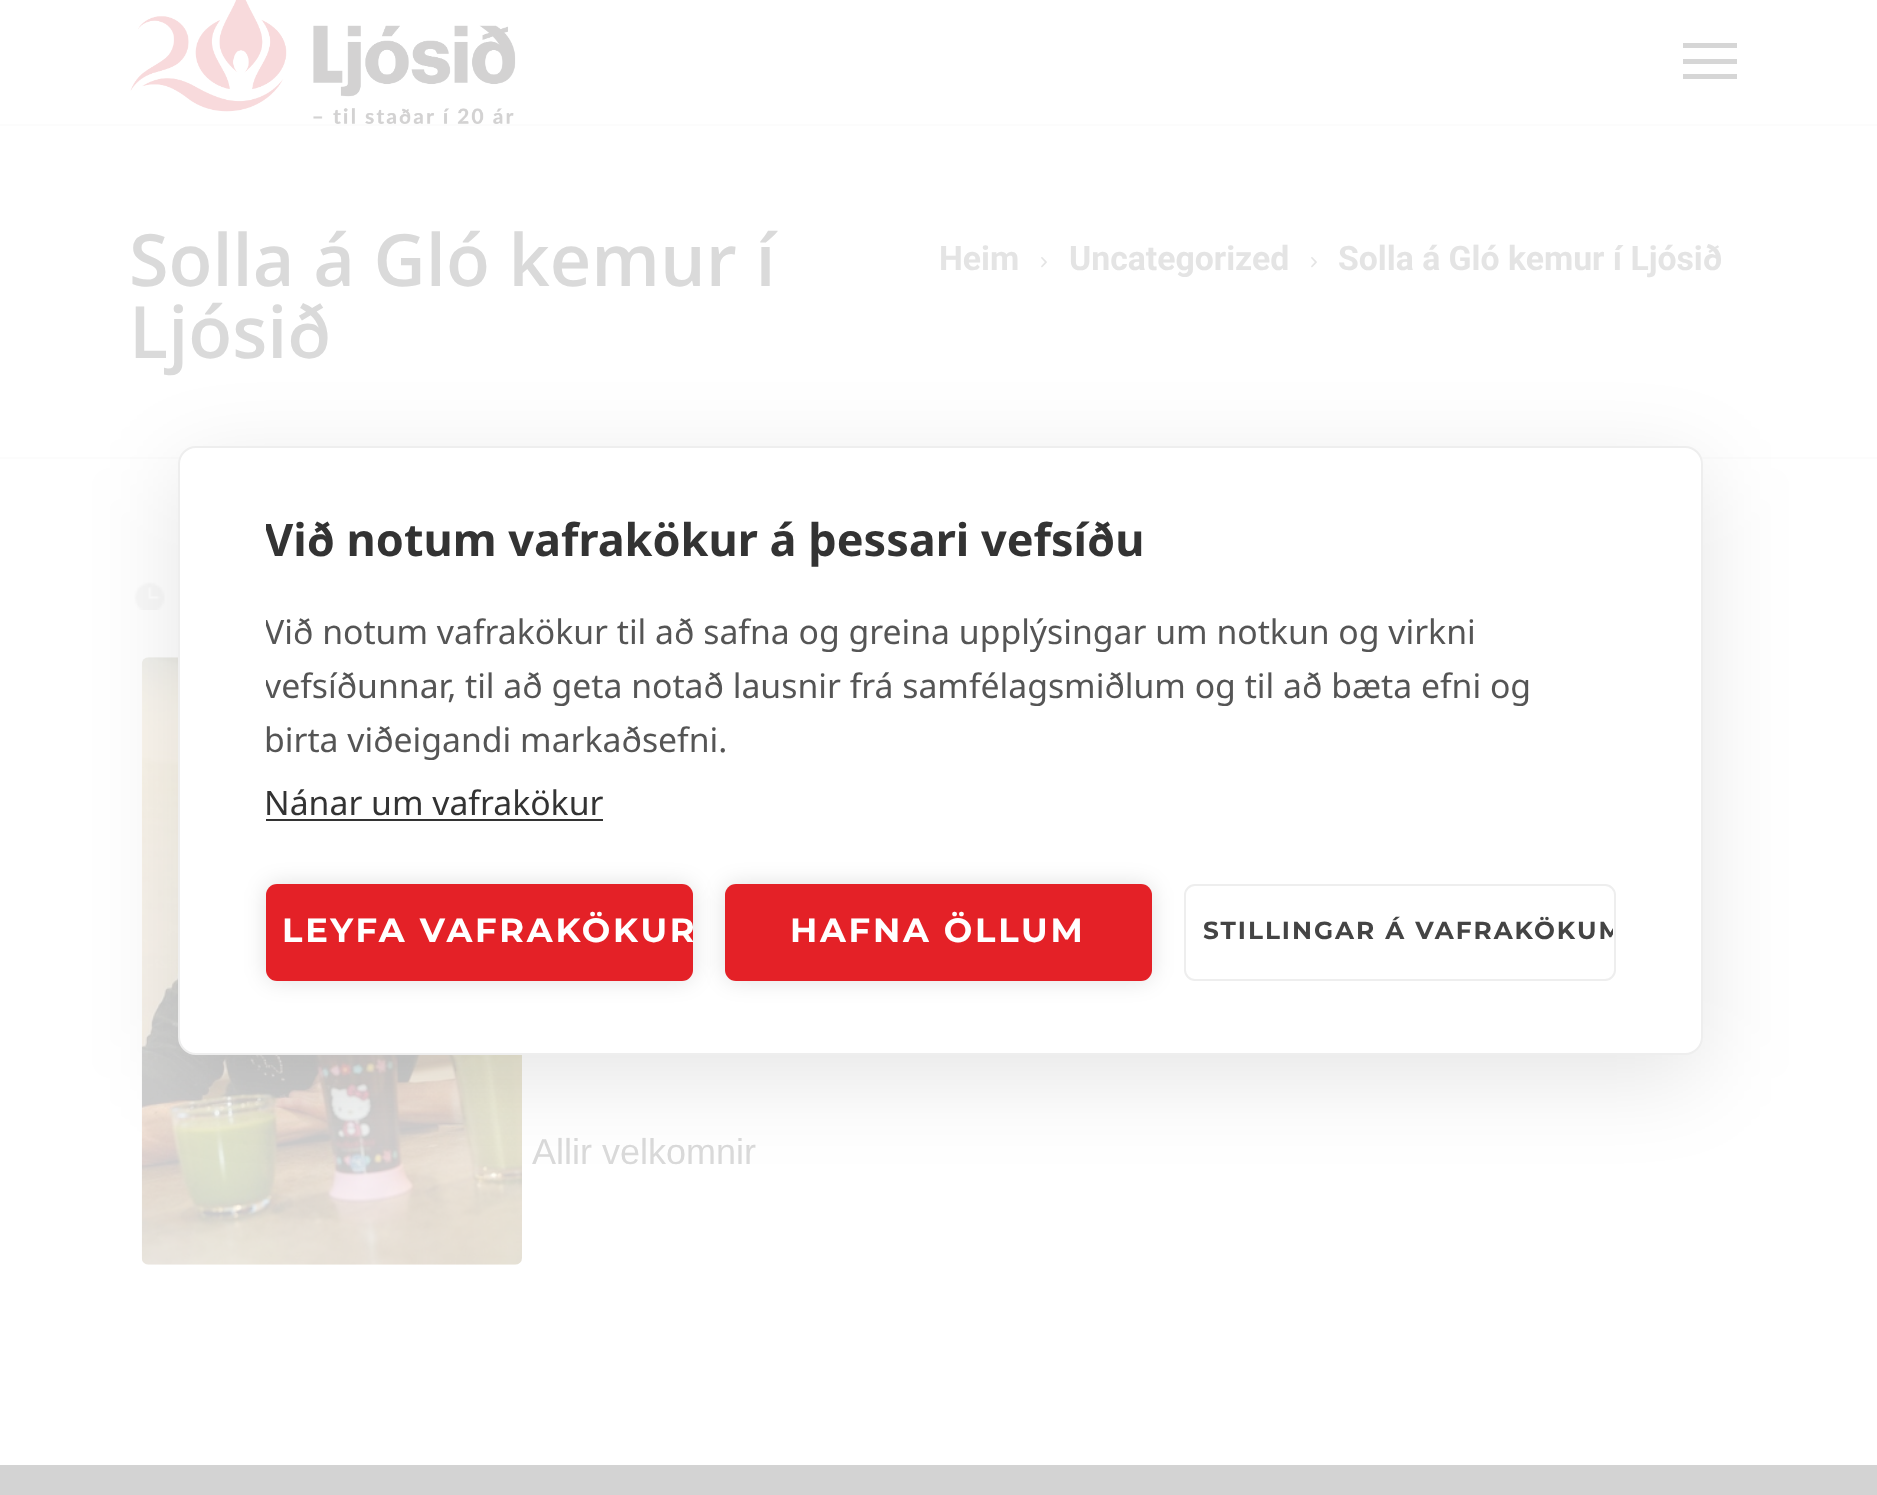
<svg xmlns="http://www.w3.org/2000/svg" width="1877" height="1495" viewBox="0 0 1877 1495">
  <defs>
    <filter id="blur1" x="-50%" y="-200%" width="200%" height="500%"><feGaussianBlur stdDeviation="45"/></filter>
    <clipPath id="clip1"><rect x="266" y="520" width="1350" height="364"/></clipPath>
    <filter id="blur2" x="-50%" y="-200%" width="200%" height="500%"><feGaussianBlur stdDeviation="11"/></filter>
    <clipPath id="clip2"><rect x="1186" y="887" width="427" height="92" rx="9"/></clipPath>
  </defs>
  <rect width="100%" height="100%" fill="#ffffff"/>
  <rect x="-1" y="-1" width="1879" height="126" fill="none" stroke="#fcfcfc" stroke-width="2"/>
  <image x="130" y="0" width="386" height="124" href="img1.png"/>
  <rect x="1683" y="43" width="54" height="5" fill="#d6d6d6"/>
  <rect x="1683" y="59" width="54" height="5" fill="#d6d6d6"/>
  <rect x="1683" y="74" width="54" height="5" fill="#d6d6d6"/>
  <rect x="0" y="457" width="1877" height="2" fill="#fcfcfc"/>
  <text x="129" y="286" font-family="Open Sans" font-size="72" font-weight="600" fill="#dadada">Solla á Gló kemur í</text>
  <text x="129" y="358" font-family="Open Sans" font-size="72" font-weight="600" fill="#dadada">Ljósið</text>
  <text x="939" y="270" font-family="Roboto" font-size="33.75" font-weight="bold" fill="#e4e4e4">Heim</text>
  <image x="1041" y="257" width="6" height="11" href="img2.png"/>
  <text x="1069" y="270" font-family="Roboto" font-size="33.75" font-weight="bold" fill="#e4e4e4">Uncategorized</text>
  <image x="1311" y="257" width="6" height="11" href="img2.png"/>
  <text x="1338" y="270" font-family="Roboto" font-size="33.75" font-weight="bold" fill="#e4e4e4">Solla á Gló kemur í Ljósið</text>
  <image x="134" y="582" width="31" height="28" href="img3.png"/>
  <image x="141" y="657" width="381" height="608" href="img4.png"/>
  <text x="532" y="1164" font-family="Liberation Sans" font-size="36" fill="#dadada">Allir velkomnir</text>
  <rect x="0" y="1465" width="1877" height="30" fill="#d3d3d3"/>
  <rect x="178" y="468" width="1525" height="610" rx="18" fill="#000000" fill-opacity="0.1" filter="url(#blur1)"/>
  <rect x="179" y="447" width="1523" height="607" rx="17" fill="#ffffff" stroke="#eeeeee" stroke-width="2"/>
  <g clip-path="url(#clip1)">
    <text x="264" y="556" font-family="Noto Sans" font-size="45" font-weight="bold" fill="#333333">Við notum vafrakökur á þessari vefsíðu</text>
    <text x="264" y="644" font-family="Noto Sans" font-size="33.75" fill="#555555">Við notum vafrakökur til að safna og greina upplýsingar um notkun og virkni</text>
    <text x="264" y="698" font-family="Noto Sans" font-size="33.75" fill="#555555">vefsíðunnar, til að geta notað lausnir frá samfélagsmiðlum og til að bæta efni og</text>
  </g>
  <text x="264" y="752" font-family="Noto Sans" font-size="33.75" fill="#555555">birta viðeigandi markaðsefni.</text>
  <text x="264" y="815" font-family="Noto Sans" font-size="33.75" fill="#333333">Nánar um vafrakökur</text>
  <rect x="266" y="819" width="337" height="2" fill="#333333"/>
  <rect x="266" y="884" width="427" height="97" rx="11" fill="#000000" fill-opacity="0.12" filter="url(#blur2)"/>
  <rect x="266" y="884" width="427" height="97" rx="11" fill="#e42127"/>
  <text x="282" y="942" font-family="Montserrat" font-size="33.75" font-weight="bold" letter-spacing="2.75" fill="#ffffff">LEYFA VAFRAKÖKUR</text>
  <rect x="725" y="884" width="427" height="97" rx="11" fill="#000000" fill-opacity="0.12" filter="url(#blur2)"/>
  <rect x="725" y="884" width="427" height="97" rx="11" fill="#e42127"/>
  <text x="790" y="942" font-family="Montserrat" font-size="33.75" font-weight="bold" letter-spacing="2.75" fill="#ffffff">HAFNA ÖLLUM</text>
  <rect x="1185" y="885" width="430" height="95" rx="10" fill="none" stroke="#eeeeee" stroke-width="2"/>
  <g clip-path="url(#clip2)">
    <text x="1203" y="939" font-family="Montserrat" font-size="24.75" font-weight="bold" letter-spacing="2" fill="#444444">STILLINGAR Á VAFRAKÖKUM</text>
  </g>
</svg>
